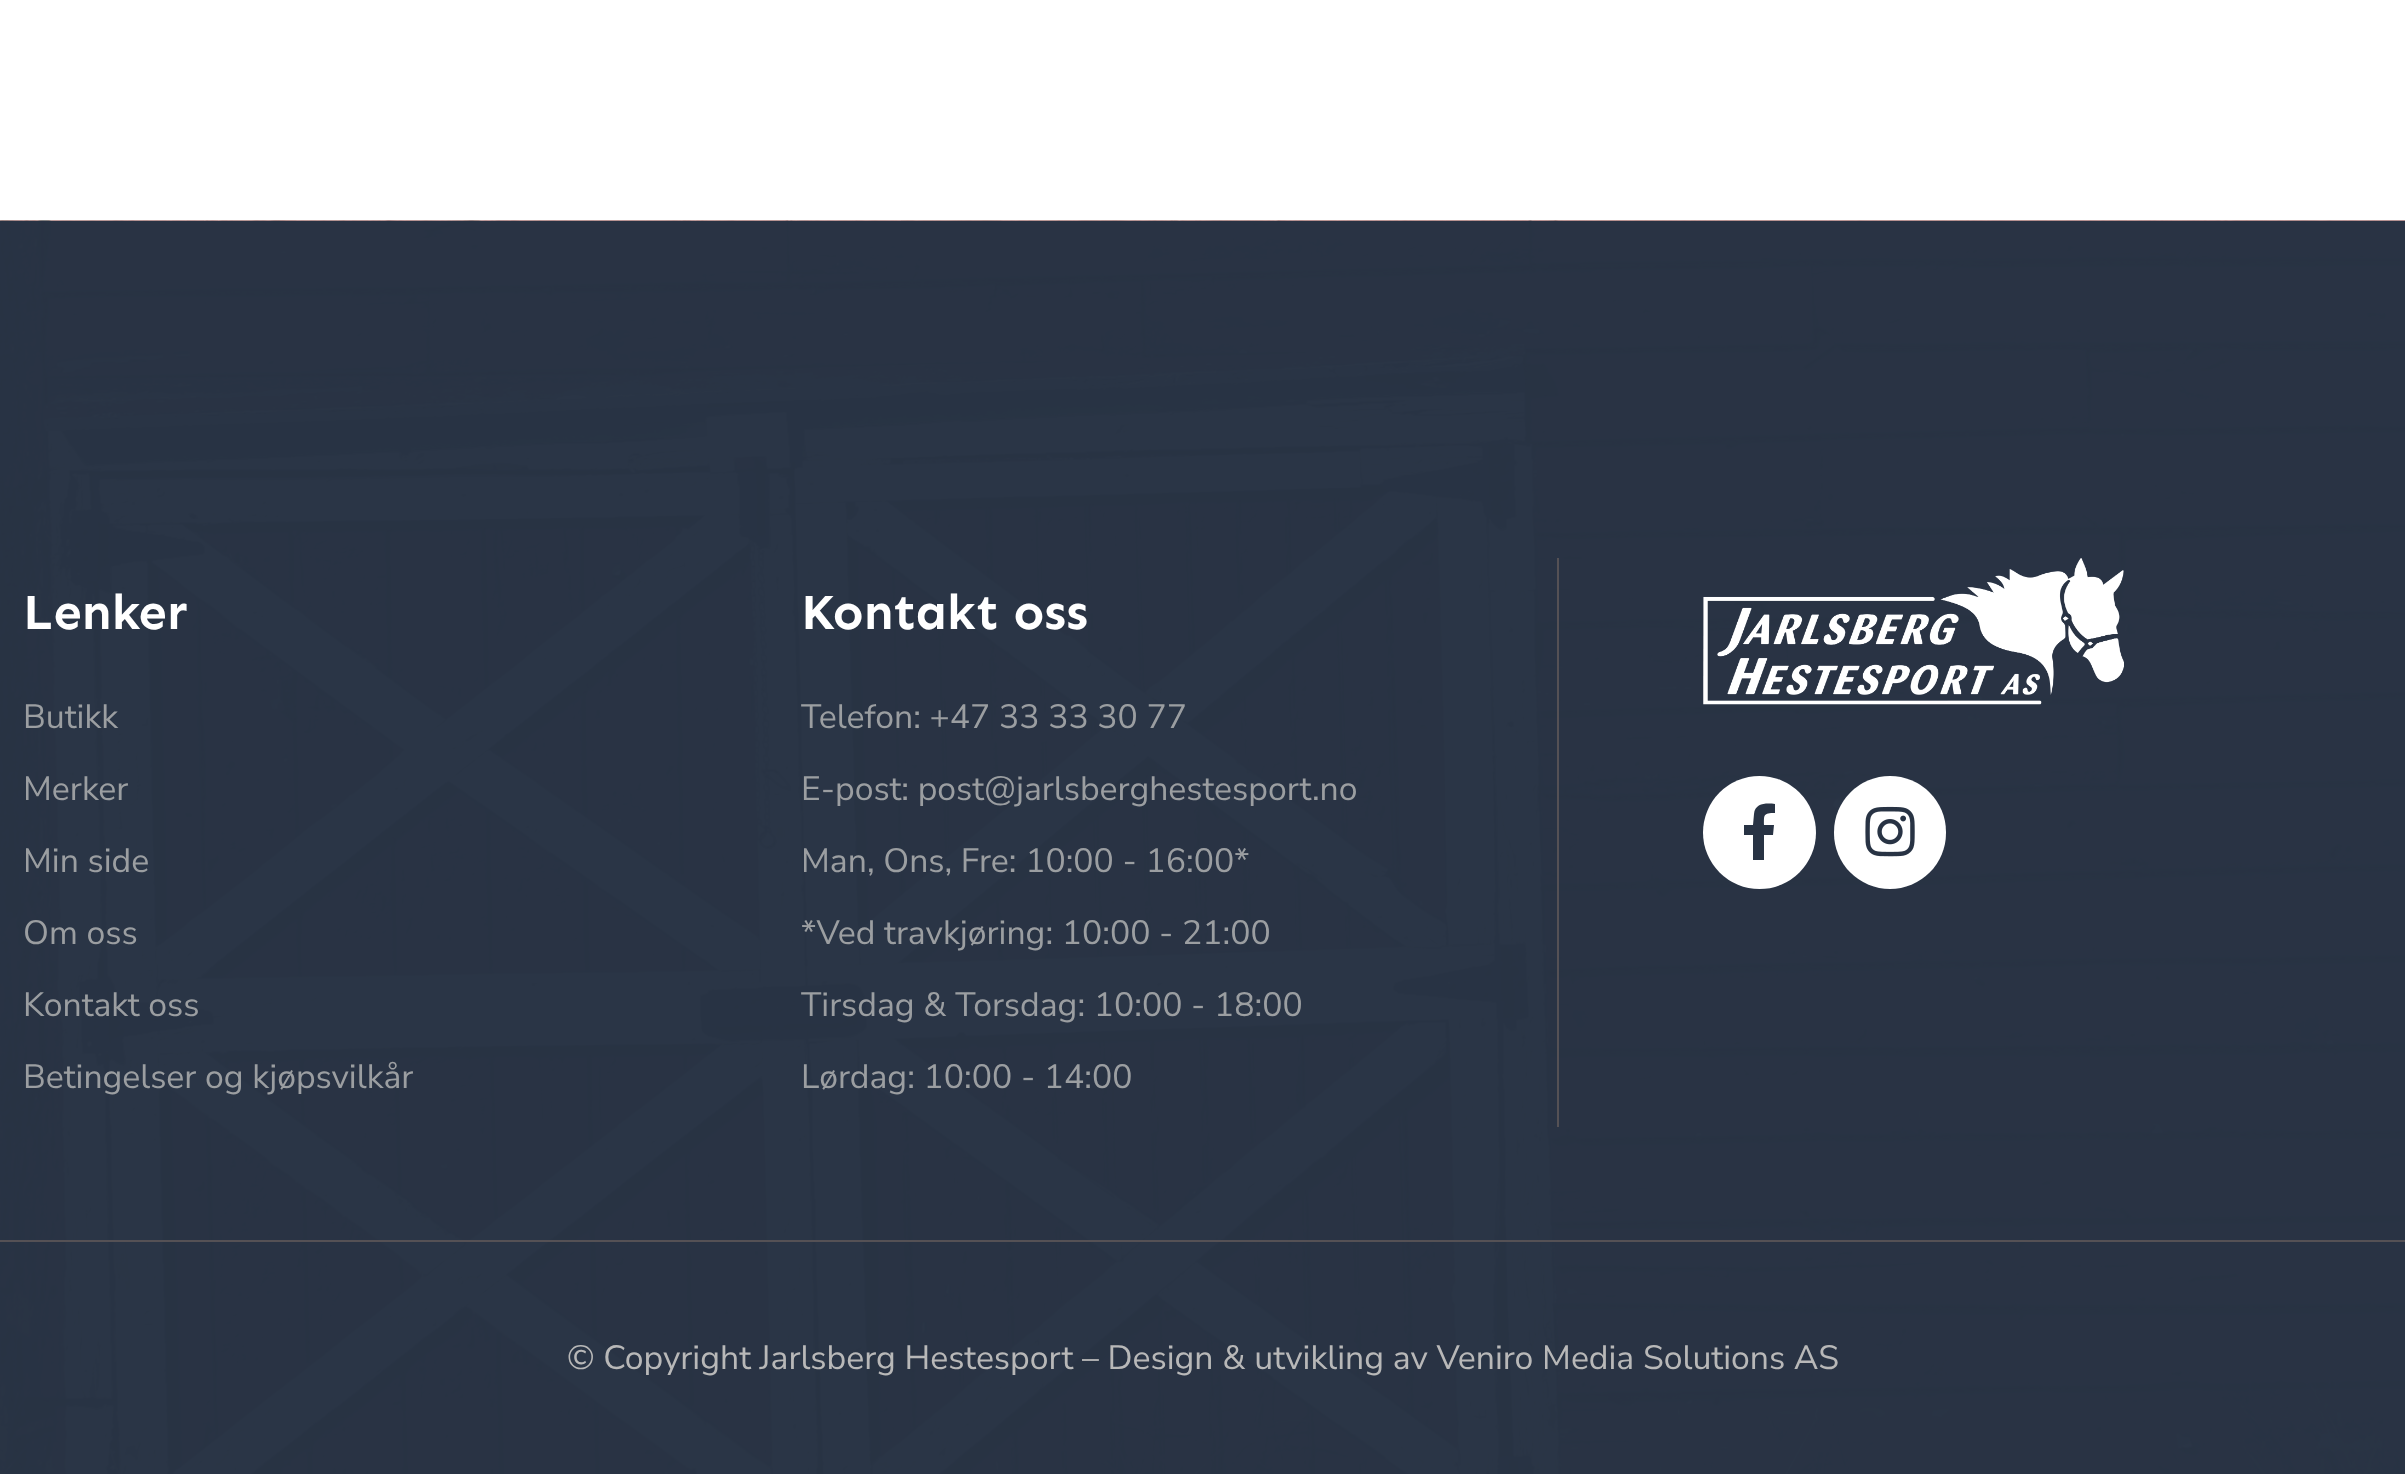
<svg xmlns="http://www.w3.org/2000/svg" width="2405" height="1474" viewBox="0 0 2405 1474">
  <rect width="100%" height="100%" fill="#ffffff"/>
  <image x="0" y="220" width="2405" height="1254" href="img1.png"/>
  <rect x="0" y="1240" width="2405" height="2" fill="#555155"/>
  <text x="23" y="629" font-family="Sen" font-size="50.5" font-weight="bold" fill="#ffffff">Lenker</text>
  <text x="23" y="728" font-family="Nunito Sans" font-size="33.75" fill="#9b9ea1">Butikk</text>
  <text x="23" y="800" font-family="Nunito Sans" font-size="33.75" fill="#9b9ea1">Merker</text>
  <text x="23" y="872" font-family="Nunito Sans" font-size="33.75" fill="#9b9ea1">Min side</text>
  <text x="23" y="944" font-family="Nunito Sans" font-size="33.75" fill="#9b9ea1">Om oss</text>
  <text x="23" y="1016" font-family="Nunito Sans" font-size="33.75" fill="#9b9ea1">Kontakt oss</text>
  <text x="23" y="1088" font-family="Nunito Sans" font-size="33.75" fill="#9b9ea1">Betingelser og kjøpsvilkår</text>
  <text x="801" y="629" font-family="Sen" font-size="50.5" font-weight="bold" fill="#ffffff">Kontakt oss</text>
  <text x="801" y="728" font-family="Nunito Sans" font-size="33.75" fill="#9b9ea1">Telefon: +47 33 33 30 77</text>
  <text x="801" y="800" font-family="Nunito Sans" font-size="33.75" fill="#9b9ea1">E-post: post@jarlsberghestesport.no</text>
  <text x="801" y="872" font-family="Nunito Sans" font-size="33.75" fill="#9b9ea1">Man, Ons, Fre: 10:00 - 16:00*</text>
  <text x="801" y="944" font-family="Nunito Sans" font-size="33.75" fill="#9b9ea1">*Ved travkjøring: 10:00 - 21:00</text>
  <text x="801" y="1016" font-family="Nunito Sans" font-size="33.75" fill="#9b9ea1">Tirsdag &amp; Torsdag: 10:00 - 18:00</text>
  <text x="801" y="1088" font-family="Nunito Sans" font-size="33.75" fill="#9b9ea1">Lørdag: 10:00 - 14:00</text>
  <rect x="1557" y="558" width="2" height="569" fill="#555155"/>
  <image x="1703" y="558" width="421" height="147" href="img2.png"/>
  <circle cx="1759.5" cy="832.5" r="56.5" fill="#ffffff"/>
  <path d="M1773 835H1764V860H1753V835H1744V825H1753L1754 814C1755 803 1766 803 1775 804V813C1763 813 1764 815 1764 825H1774Z" fill="#283344"/>
  <rect x="1834" y="776" width="112" height="113" rx="56" fill="#ffffff"/>
  <image x="1865" y="806" width="50" height="51" href="img3.png"/>
  <text x="567" y="1369" font-family="Nunito Sans" font-size="33.75" fill="#b8b8b8">© Copyright Jarlsberg Hestesport – Design &amp; utvikling av Veniro Media Solutions AS</text>
</svg>
